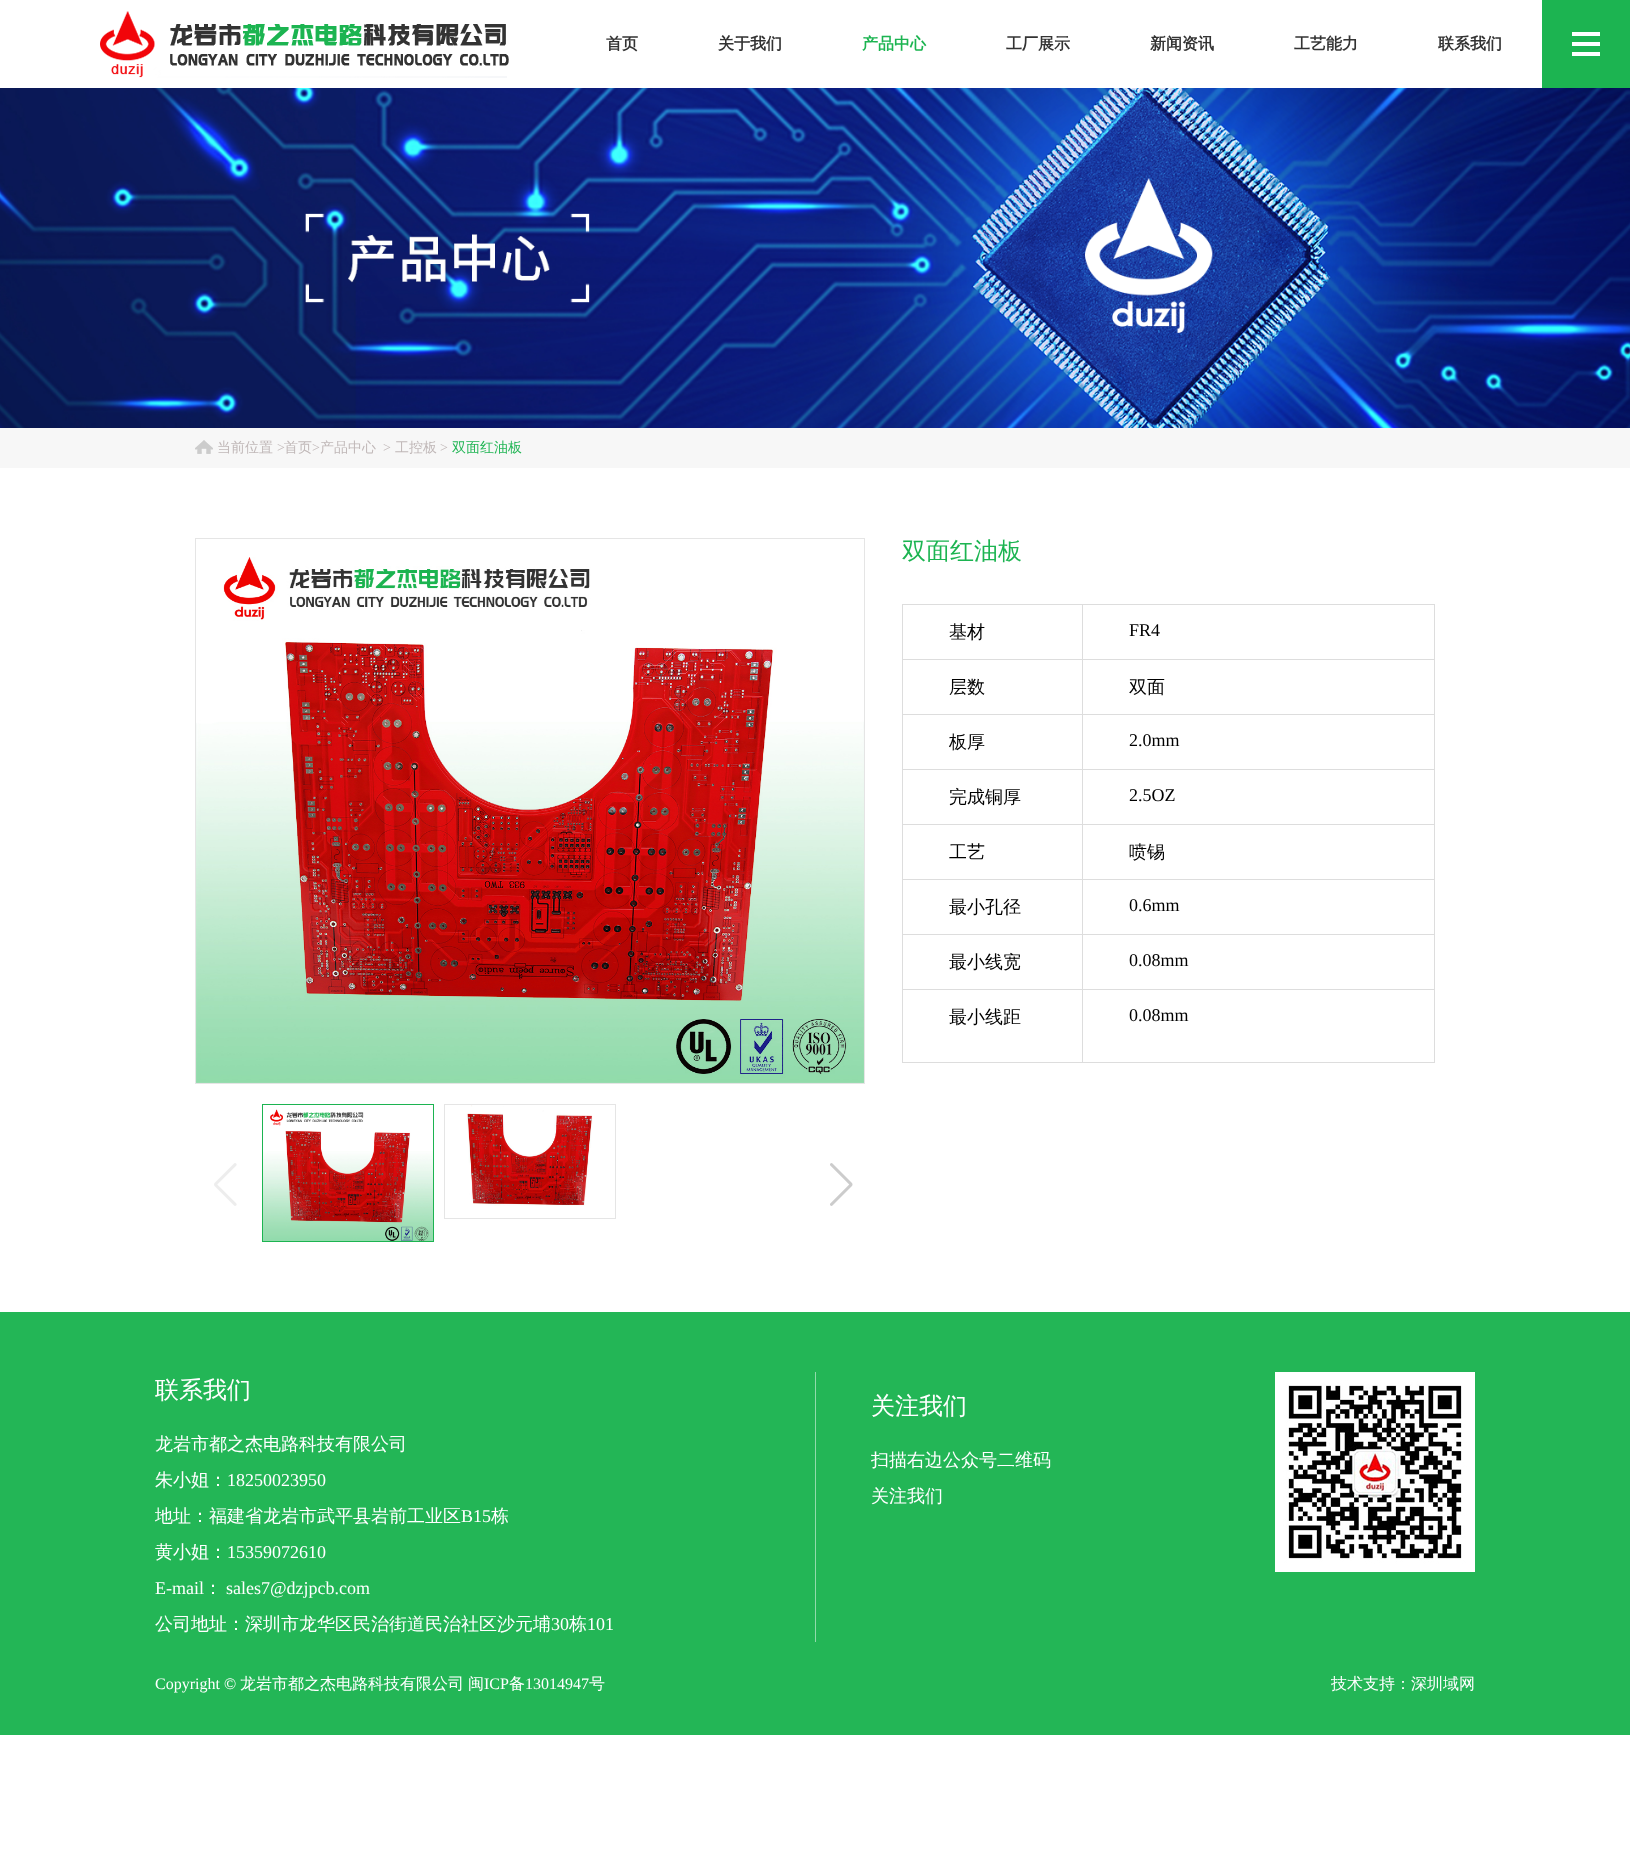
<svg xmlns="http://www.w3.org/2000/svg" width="1630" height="1853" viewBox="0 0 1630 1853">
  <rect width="100%" height="100%" fill="#ffffff"/>
  <image x="100" y="11" width="409" height="67" href="img1.png"/>
  <text x="606" y="49" font-family="WenQuanYi Zen Hei" font-size="16" font-weight="bold" fill="#333333">首页</text>
  <text x="718" y="49" font-family="WenQuanYi Zen Hei" font-size="16" font-weight="bold" fill="#333333">关于我们</text>
  <text x="862" y="49" font-family="WenQuanYi Zen Hei" font-size="16" font-weight="bold" fill="#1cb451">产品中心</text>
  <text x="1006" y="49" font-family="WenQuanYi Zen Hei" font-size="16" font-weight="bold" fill="#333333">工厂展示</text>
  <text x="1150" y="49" font-family="WenQuanYi Zen Hei" font-size="16" font-weight="bold" fill="#333333">新闻资讯</text>
  <text x="1294" y="49" font-family="WenQuanYi Zen Hei" font-size="16" font-weight="bold" fill="#333333">工艺能力</text>
  <text x="1438" y="49" font-family="WenQuanYi Zen Hei" font-size="16" font-weight="bold" fill="#333333">联系我们</text>
  <rect x="1542" y="0" width="88" height="88" fill="#1cb451"/>
  <rect x="1572" y="32" width="28" height="4" fill="#ffffff"/>
  <rect x="1572" y="42" width="28" height="4" fill="#ffffff"/>
  <rect x="1572" y="52" width="28" height="4" fill="#ffffff"/>
  <image x="0" y="88" width="1630" height="340" href="img2.png"/>
  <rect x="0" y="428" width="1630" height="40" fill="#f7f7f7"/>
  <image x="195" y="440" width="18" height="14" href="img3.png"/>
  <text x="217" y="452" font-family="WenQuanYi Zen Hei" font-size="14" font-weight="500" fill="#c0b8b8">当前位置</text>
  <text x="277" y="452" font-family="Liberation Serif" font-size="14" fill="#c0b8b8">&gt;</text>
  <text x="284" y="452" font-family="WenQuanYi Zen Hei" font-size="14" font-weight="500" fill="#c0b8b8">首页</text>
  <text x="312" y="452" font-family="Liberation Serif" font-size="14" fill="#c0b8b8">&gt;</text>
  <text x="320" y="452" font-family="WenQuanYi Zen Hei" font-size="14" font-weight="500" fill="#c0b8b8">产品中心</text>
  <text x="383" y="452" font-family="Liberation Serif" font-size="14" fill="#c0b8b8">&gt;</text>
  <text x="395" y="452" font-family="WenQuanYi Zen Hei" font-size="14" font-weight="500" fill="#c0b8b8">工控板</text>
  <text x="440" y="452" font-family="Liberation Serif" font-size="14" fill="#c0b8b8">&gt;</text>
  <text x="452" y="452" font-family="WenQuanYi Zen Hei" font-size="14" font-weight="500" fill="#23b656">双面红油板</text>
  <rect x="195.5" y="538.5" width="669" height="545" fill="none" stroke="#e5e5e5"/>
  <image x="196" y="557" width="668" height="526" href="img4.png"/>
  <image x="214" y="1163" width="23" height="43" href="img5.png"/>
  <rect x="262.5" y="1104.5" width="171" height="137" fill="none" stroke="#1cb451"/>
  <image x="263" y="1109" width="170" height="132" href="img6.png"/>
  <rect x="444.5" y="1104.5" width="171" height="114" fill="none" stroke="#e5e5e5"/>
  <image x="466" y="1105" width="127" height="101" href="img7.png"/>
  <image x="830" y="1163" width="23" height="43" href="img8.png"/>
  <text x="902" y="559" font-family="WenQuanYi Zen Hei" font-size="24" font-weight="500" fill="#1cb451">双面红油板</text>
  <rect x="1082" y="604" width="353" height="1" fill="#dddddd"/>
  <rect x="1082" y="659" width="353" height="1" fill="#dddddd"/>
  <rect x="1082" y="714" width="353" height="1" fill="#dddddd"/>
  <rect x="1082" y="769" width="353" height="1" fill="#dddddd"/>
  <rect x="1082" y="824" width="353" height="1" fill="#dddddd"/>
  <rect x="1082" y="879" width="353" height="1" fill="#dddddd"/>
  <rect x="1082" y="934" width="353" height="1" fill="#dddddd"/>
  <rect x="1082" y="989" width="353" height="1" fill="#dddddd"/>
  <rect x="1434" y="989" width="1" height="74" fill="#dddddd"/>
  <rect x="1082" y="1062" width="353" height="1" fill="#dddddd"/>
  <rect x="1082" y="989" width="1" height="74" fill="#dddddd"/>
  <rect x="902" y="989" width="181" height="1" fill="#dddddd"/>
  <rect x="1082" y="934" width="1" height="56" fill="#dddddd"/>
  <rect x="902" y="934" width="181" height="1" fill="#dddddd"/>
  <rect x="1082" y="879" width="1" height="56" fill="#dddddd"/>
  <rect x="902" y="879" width="181" height="1" fill="#dddddd"/>
  <rect x="1082" y="824" width="1" height="56" fill="#dddddd"/>
  <rect x="902" y="824" width="181" height="1" fill="#dddddd"/>
  <rect x="1082" y="769" width="1" height="56" fill="#dddddd"/>
  <rect x="902" y="769" width="181" height="1" fill="#dddddd"/>
  <rect x="1082" y="714" width="1" height="56" fill="#dddddd"/>
  <rect x="902" y="714" width="181" height="1" fill="#dddddd"/>
  <rect x="1082" y="659" width="1" height="56" fill="#dddddd"/>
  <rect x="902" y="659" width="181" height="1" fill="#dddddd"/>
  <rect x="1082" y="604" width="1" height="56" fill="#dddddd"/>
  <rect x="902" y="604" width="181" height="1" fill="#dddddd"/>
  <rect x="902" y="1062" width="181" height="1" fill="#dddddd"/>
  <rect x="902" y="989" width="1" height="74" fill="#dddddd"/>
  <rect x="902" y="934" width="1" height="56" fill="#dddddd"/>
  <rect x="902" y="879" width="1" height="56" fill="#dddddd"/>
  <rect x="902" y="824" width="1" height="56" fill="#dddddd"/>
  <rect x="902" y="769" width="1" height="56" fill="#dddddd"/>
  <rect x="902" y="714" width="1" height="56" fill="#dddddd"/>
  <rect x="902" y="659" width="1" height="56" fill="#dddddd"/>
  <rect x="902" y="604" width="1" height="56" fill="#dddddd"/>
  <text x="949" y="638" font-family="WenQuanYi Zen Hei" font-size="18" font-weight="500" fill="#000000">基材</text>
  <rect x="1434" y="934" width="1" height="56" fill="#dddddd"/>
  <rect x="1434" y="879" width="1" height="56" fill="#dddddd"/>
  <rect x="1434" y="824" width="1" height="56" fill="#dddddd"/>
  <rect x="1434" y="769" width="1" height="56" fill="#dddddd"/>
  <rect x="1434" y="714" width="1" height="56" fill="#dddddd"/>
  <rect x="1434" y="659" width="1" height="56" fill="#dddddd"/>
  <rect x="1434" y="604" width="1" height="56" fill="#dddddd"/>
  <text x="1129" y="636" font-family="Liberation Serif" font-size="18" fill="#000000">FR4</text>
  <text x="949" y="693" font-family="WenQuanYi Zen Hei" font-size="18" font-weight="500" fill="#000000">层数</text>
  <text x="1129" y="693" font-family="WenQuanYi Zen Hei" font-size="18" font-weight="500" fill="#000000">双面</text>
  <text x="949" y="748" font-family="WenQuanYi Zen Hei" font-size="18" font-weight="500" fill="#000000">板厚</text>
  <text x="1129" y="746" font-family="Liberation Serif" font-size="18" fill="#000000">2.0mm</text>
  <text x="949" y="803" font-family="WenQuanYi Zen Hei" font-size="18" font-weight="500" fill="#000000">完成铜厚</text>
  <text x="1129" y="801" font-family="Liberation Serif" font-size="18" fill="#000000">2.5OZ</text>
  <text x="949" y="858" font-family="WenQuanYi Zen Hei" font-size="18" font-weight="500" fill="#000000">工艺</text>
  <text x="1129" y="858" font-family="WenQuanYi Zen Hei" font-size="18" font-weight="500" fill="#000000">喷锡</text>
  <text x="949" y="913" font-family="WenQuanYi Zen Hei" font-size="18" font-weight="500" fill="#000000">最小孔径</text>
  <text x="1129" y="911" font-family="Liberation Serif" font-size="18" fill="#000000">0.6mm</text>
  <text x="949" y="968" font-family="WenQuanYi Zen Hei" font-size="18" font-weight="500" fill="#000000">最小线宽</text>
  <text x="1129" y="966" font-family="Liberation Serif" font-size="18" fill="#000000">0.08mm</text>
  <text x="949" y="1023" font-family="WenQuanYi Zen Hei" font-size="18" font-weight="500" fill="#000000">最小线距</text>
  <text x="1129" y="1021" font-family="Liberation Serif" font-size="18" fill="#000000">0.08mm</text>
  <rect x="0" y="1312" width="1630" height="423" fill="#23b656"/>
  <text x="155" y="1398" font-family="WenQuanYi Zen Hei" font-size="24" font-weight="500" fill="#ffffff">联系我们</text>
  <text x="155" y="1450" font-family="WenQuanYi Zen Hei" font-size="18" font-weight="500" fill="#ffffff">龙岩市都之杰电路科技有限公司</text>
  <text x="155" y="1486" font-family="WenQuanYi Zen Hei" font-size="18" font-weight="500" fill="#ffffff">朱小姐：</text>
  <text x="227" y="1486" font-family="Liberation Serif" font-size="18" fill="#ffffff">18250023950</text>
  <text x="155" y="1522" font-family="WenQuanYi Zen Hei" font-size="18" font-weight="500" fill="#ffffff">地址：福建省龙岩市武平县岩前工业区</text>
  <text x="461" y="1522" font-family="Liberation Serif" font-size="18" fill="#ffffff">B15</text>
  <text x="491" y="1522" font-family="WenQuanYi Zen Hei" font-size="18" font-weight="500" fill="#ffffff">栋</text>
  <text x="155" y="1558" font-family="WenQuanYi Zen Hei" font-size="18" font-weight="500" fill="#ffffff">黄小姐：</text>
  <text x="227" y="1558" font-family="Liberation Serif" font-size="18" fill="#ffffff">15359072610</text>
  <text x="155" y="1594" font-family="Liberation Serif" font-size="18" fill="#ffffff">E-mail</text>
  <text x="204" y="1594" font-family="WenQuanYi Zen Hei" font-size="18" font-weight="500" fill="#ffffff">：</text>
  <text x="226" y="1594" font-family="Liberation Serif" font-size="18" fill="#ffffff">sales7@dzjpcb.com</text>
  <text x="155" y="1630" font-family="WenQuanYi Zen Hei" font-size="18" font-weight="500" fill="#ffffff">公司地址：深圳市龙华区民治街道民治社区沙元埔</text>
  <text x="551" y="1630" font-family="Liberation Serif" font-size="18" fill="#ffffff">30</text>
  <text x="569" y="1630" font-family="WenQuanYi Zen Hei" font-size="18" font-weight="500" fill="#ffffff">栋</text>
  <text x="587" y="1630" font-family="Liberation Serif" font-size="18" fill="#ffffff">101</text>
  <rect x="815" y="1372" width="1" height="270" fill="#91dbab"/>
  <text x="871" y="1414" font-family="WenQuanYi Zen Hei" font-size="24" font-weight="500" fill="#ffffff">关注我们</text>
  <text x="871" y="1466" font-family="WenQuanYi Zen Hei" font-size="18" font-weight="500" fill="#ffffff">扫描右边公众号二维码</text>
  <text x="871" y="1502" font-family="WenQuanYi Zen Hei" font-size="18" font-weight="500" fill="#ffffff">关注我们</text>
  <image x="1275" y="1372" width="200" height="200" href="img9.png"/>
  <text x="155" y="1689" font-family="Liberation Serif" font-size="16" fill="#ffffff">Copyright ©</text>
  <text x="240" y="1689" font-family="WenQuanYi Zen Hei" font-size="16" font-weight="500" fill="#ffffff">龙岩市都之杰电路科技有限公司</text>
  <text x="468" y="1689" font-family="WenQuanYi Zen Hei" font-size="16" font-weight="500" fill="#ffffff">闽</text>
  <text x="484" y="1689" font-family="Liberation Serif" font-size="16" fill="#ffffff">ICP</text>
  <text x="509" y="1689" font-family="WenQuanYi Zen Hei" font-size="16" font-weight="500" fill="#ffffff">备</text>
  <text x="525" y="1689" font-family="Liberation Serif" font-size="16" fill="#ffffff">13014947</text>
  <text x="589" y="1689" font-family="WenQuanYi Zen Hei" font-size="16" font-weight="500" fill="#ffffff">号</text>
  <text x="1331" y="1689" font-family="WenQuanYi Zen Hei" font-size="16" font-weight="500" fill="#ffffff">技术支持：深圳域网</text>
</svg>
